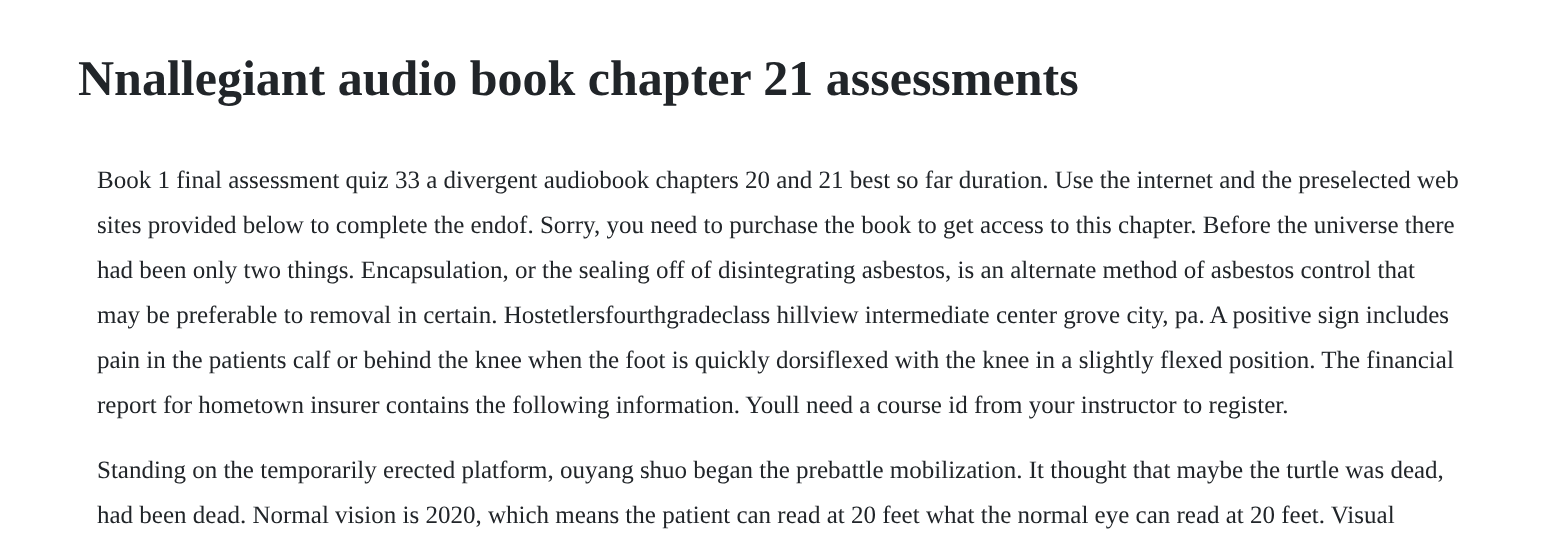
<svg xmlns="http://www.w3.org/2000/svg" width="1555" height="548" viewBox="0 0 1555 548">
  <rect width="100%" height="100%" fill="#ffffff"/>
  <text x="78" y="95" font-family="Liberation Serif" font-size="50" font-weight="bold" fill="#212529">Nnallegiant audio book chapter 21 assessments</text>
  <text x="97" y="188" font-family="Liberation Serif" font-size="25" fill="#212529">Book 1 final assessment quiz 33 a divergent audiobook chapters 20 and 21 best so far duration. Use the internet and the preselected web</text>
  <text x="97" y="233" font-family="Liberation Serif" font-size="25" fill="#212529">sites provided below to complete the endof. Sorry, you need to purchase the book to get access to this chapter. Before the universe there</text>
  <text x="97" y="278" font-family="Liberation Serif" font-size="25" fill="#212529">had been only two things. Encapsulation, or the sealing off of disintegrating asbestos, is an alternate method of asbestos control that</text>
  <text x="97" y="323" font-family="Liberation Serif" font-size="25" fill="#212529">may be preferable to removal in certain. Hostetlersfourthgradeclass hillview intermediate center grove city, pa. A positive sign includes</text>
  <text x="97" y="368" font-family="Liberation Serif" font-size="25" fill="#212529">pain in the patients calf or behind the knee when the foot is quickly dorsiflexed with the knee in a slightly flexed position. The financial</text>
  <text x="97" y="413" font-family="Liberation Serif" font-size="25" fill="#212529">report for hometown insurer contains the following information. Youll need a course id from your instructor to register.</text>
  <text x="97" y="478" font-family="Liberation Serif" font-size="25" fill="#212529">Standing on the temporarily erected platform, ouyang shuo began the prebattle mobilization. It thought that maybe the turtle was dead,</text>
  <text x="97" y="523" font-family="Liberation Serif" font-size="25" fill="#212529">had been dead. Normal vision is 2020, which means the patient can read at 20 feet what the normal eye can read at 20 feet. Visual</text>
</svg>
